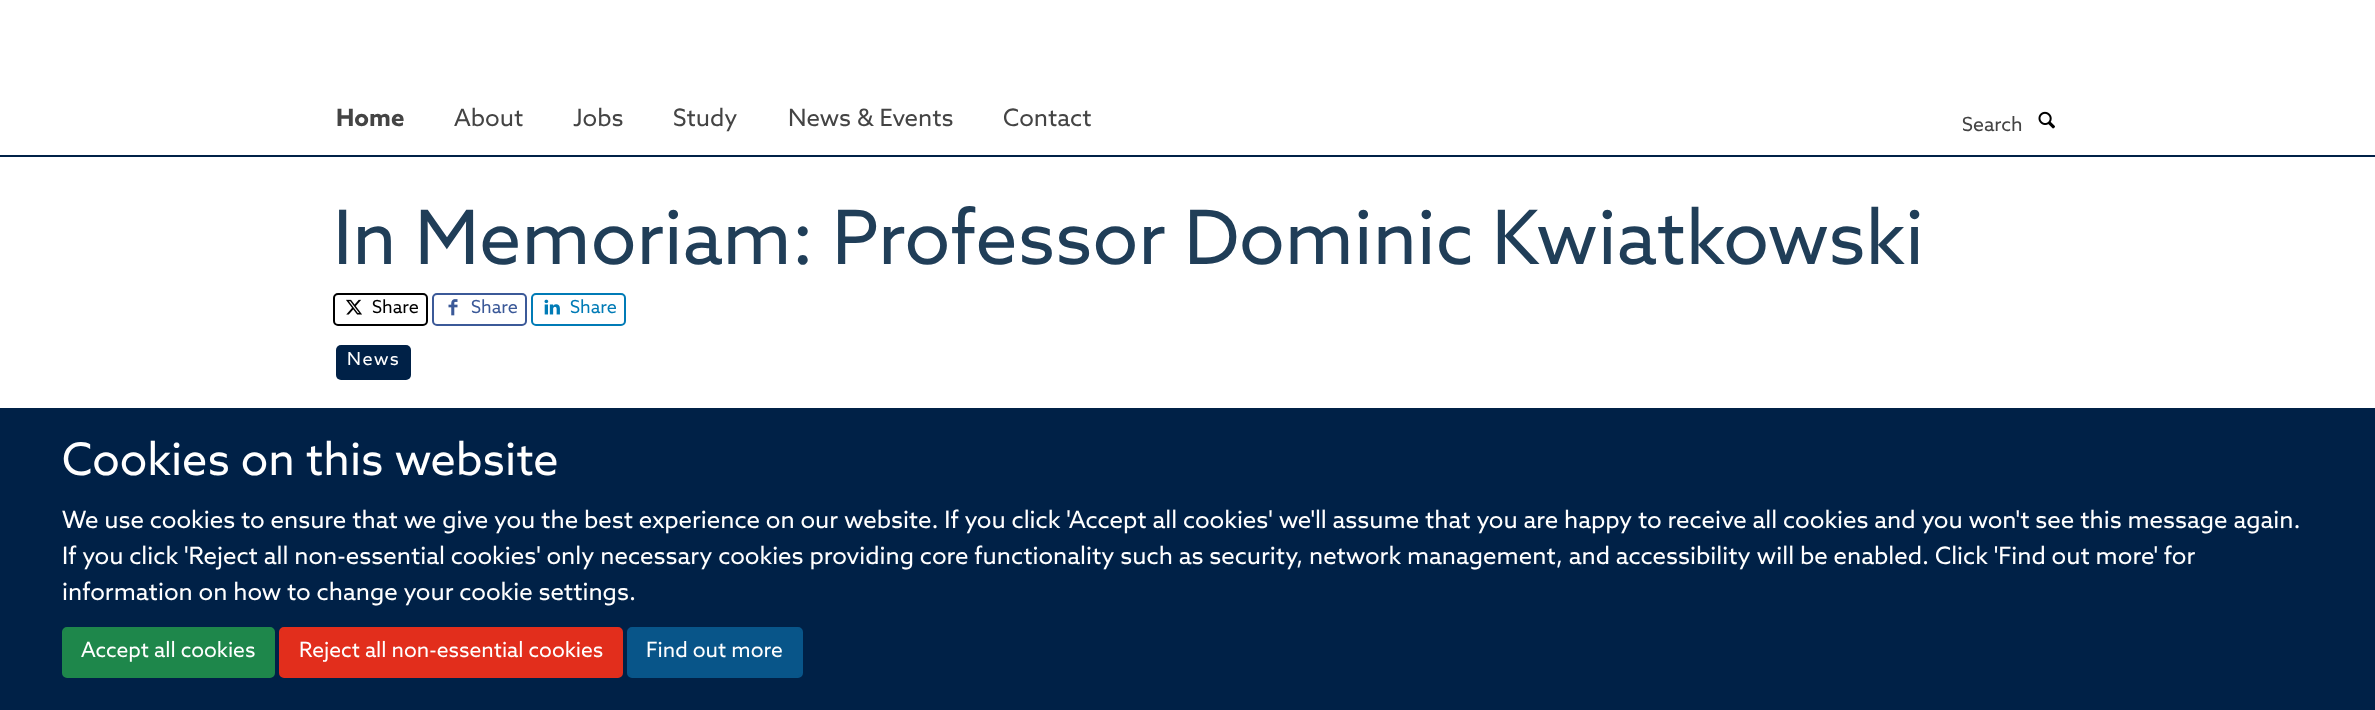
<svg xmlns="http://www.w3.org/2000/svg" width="2375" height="710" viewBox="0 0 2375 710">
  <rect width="100%" height="100%" fill="#ffffff"/>
  <rect x="0" y="155" width="2375" height="2" fill="#002147"/>
  <text x="336" y="126" font-family="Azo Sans" font-size="24" font-weight="bold" fill="#444444">Home</text>
  <text x="454" y="126" font-family="Azo Sans" font-size="24" fill="#444444">About</text>
  <text x="573" y="126" font-family="Azo Sans" font-size="24" fill="#444444">Jobs</text>
  <text x="673" y="126" font-family="Azo Sans" font-size="24" fill="#444444">Study</text>
  <text x="788" y="126" font-family="Azo Sans" font-size="24" fill="#444444">News &amp; Events</text>
  <text x="1003" y="126" font-family="Azo Sans" font-size="24" fill="#444444">Contact</text>
  <text x="1962" y="131" font-family="Azo Sans" font-size="19.5" fill="#444444">Search</text>
  <image x="2038" y="111" width="17" height="18" href="img1.png"/>
  <text x="333" y="264" font-family="Azo Sans" font-size="75" fill="#203e58">In Memoriam: Professor Dominic Kwiatkowski</text>
  <rect x="334" y="294" width="93" height="31" rx="4" fill="none" stroke="#000000" stroke-width="2"/>
  <image x="346" y="299" width="16" height="16" href="img2.png"/>
  <text x="372" y="313" font-family="Azo Sans" font-size="18" fill="#000000">Share</text>
  <rect x="433" y="294" width="93" height="31" rx="4" fill="none" stroke="#3b5998" stroke-width="2"/>
  <image x="448" y="299" width="10" height="17" href="img3.png"/>
  <text x="471" y="313" font-family="Azo Sans" font-size="18" fill="#3b5998">Share</text>
  <rect x="532" y="294" width="93" height="31" rx="4" fill="none" stroke="#007bb6" stroke-width="2"/>
  <image x="544" y="299" width="16" height="16" href="img4.png"/>
  <text x="570" y="313" font-family="Azo Sans" font-size="18" fill="#007bb6">Share</text>
  <rect x="336" y="345" width="75" height="35" rx="5" fill="#002147"/>
  <text x="347" y="365" font-family="Azo Sans" font-size="18" letter-spacing="1.5" fill="#ffffff">News</text>
  <rect x="0" y="408" width="2375" height="302" fill="#002147"/>
  <text x="62" y="475" font-family="Azo Sans" font-size="45" fill="#ffffff">Cookies on this website</text>
  <text x="62" y="528" font-family="Azo Sans" font-size="24" fill="#ffffff">We use cookies to ensure that we give you the best experience on our website. If you click 'Accept all cookies' we'll assume that you are happy to receive all cookies and you won't see this message again.</text>
  <text x="62" y="564" font-family="Azo Sans" font-size="24" fill="#ffffff">If you click 'Reject all non-essential cookies' only necessary cookies providing core functionality such as security, network management, and accessibility will be enabled. Click 'Find out more' for</text>
  <text x="62" y="600" font-family="Azo Sans" font-size="24" fill="#ffffff">information on how to change your cookie settings.</text>
  <rect x="63" y="628" width="211" height="49" rx="4" fill="#1e874b" stroke="#1e874b" stroke-width="2"/>
  <text x="81" y="657" font-family="Azo Sans" font-size="21" fill="#ffffff">Accept all cookies</text>
  <rect x="280" y="628" width="342" height="49" rx="4" fill="#e22e1c" stroke="#e22e1c" stroke-width="2"/>
  <text x="299" y="657" font-family="Azo Sans" font-size="21" fill="#ffffff">Reject all non-essential cookies</text>
  <rect x="628" y="628" width="174" height="49" rx="4" fill="#085589" stroke="#085589" stroke-width="2"/>
  <text x="646" y="657" font-family="Azo Sans" font-size="21" fill="#ffffff">Find out more</text>
</svg>
